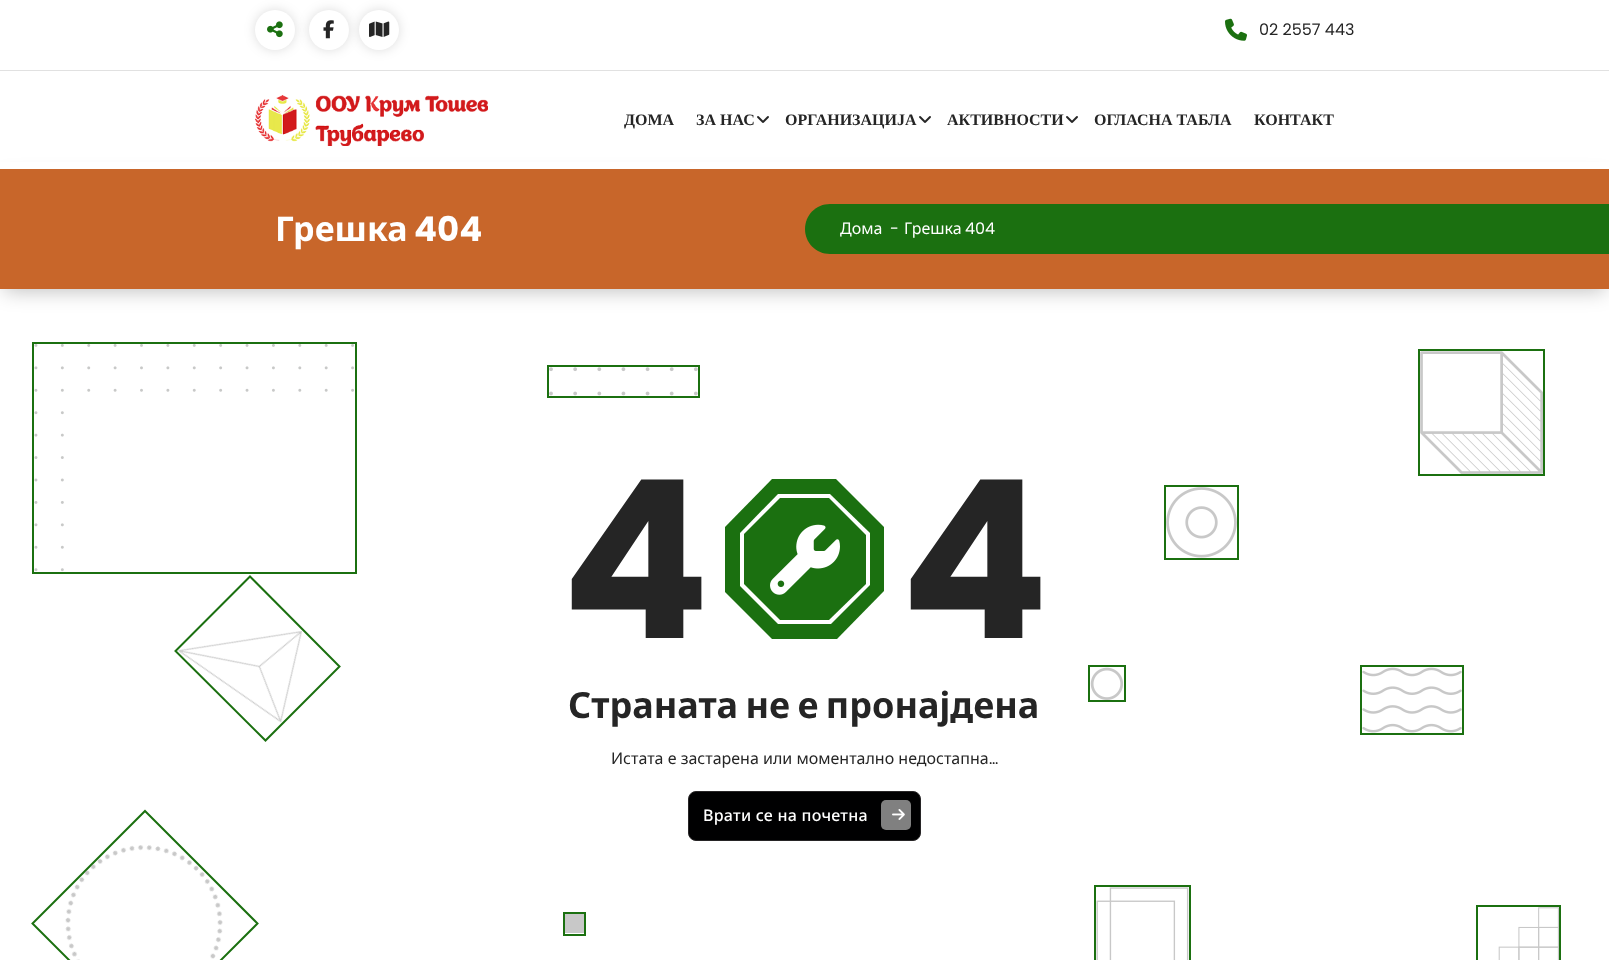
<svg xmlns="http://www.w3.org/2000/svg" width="1609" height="960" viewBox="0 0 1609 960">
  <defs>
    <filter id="blur1" x="-50%" y="-200%" width="200%" height="500%"><feGaussianBlur stdDeviation="10"/></filter>
    <filter id="blur2" x="-50%" y="-200%" width="200%" height="500%"><feGaussianBlur stdDeviation="6.5"/></filter>
  </defs>
  <rect width="100%" height="100%" fill="#ffffff"/>
  <rect x="4" y="179" width="1601" height="112" fill="#000000" fill-opacity="0.25" filter="url(#blur1)"/>
  <rect x="0" y="162" width="1609" height="7" fill="#ffffff"/>
  <rect x="0" y="70" width="1609" height="1" fill="#e1e1e1"/>
  <rect x="257" y="12" width="36" height="36" rx="18" fill="#000000" fill-opacity="0.2" filter="url(#blur2)"/>
  <circle cx="275" cy="30" r="20" fill="#ffffff"/>
  <image x="267" y="21" width="16" height="17" href="img1.png"/>
  <rect x="311" y="12" width="36" height="36" rx="18" fill="#000000" fill-opacity="0.2" filter="url(#blur2)"/>
  <circle cx="329" cy="30" r="20" fill="#ffffff"/>
  <image x="323" y="20" width="11" height="19" href="img2.png"/>
  <rect x="361" y="12" width="36" height="36" rx="18" fill="#000000" fill-opacity="0.2" filter="url(#blur2)"/>
  <circle cx="379" cy="30" r="20" fill="#ffffff"/>
  <image x="369" y="21" width="21" height="16" href="img3.png"/>
  <image x="1225" y="18" width="22" height="23" href="img4.png"/>
  <text x="1259" y="35" font-family="Poppins" font-size="16" fill="#252525">02 2557 443</text>
  <image x="255" y="95" width="233" height="51" href="img5.png"/>
  <text x="624" y="125" font-family="Liberation Serif" font-size="16" font-weight="bold" fill="#252525">ДОМА</text>
  <text x="696" y="125" font-family="Liberation Serif" font-size="16" font-weight="bold" fill="#252525">ЗА НАС</text>
  <image x="757" y="116" width="12" height="7" href="img6.png"/>
  <text x="785" y="125" font-family="Liberation Serif" font-size="16" font-weight="bold" fill="#252525">ОРГАНИЗАЦИЈА</text>
  <image x="919" y="116" width="12" height="7" href="img6.png"/>
  <text x="947" y="125" font-family="Liberation Serif" font-size="16" font-weight="bold" fill="#252525">АКТИВНОСТИ</text>
  <image x="1066" y="116" width="12" height="7" href="img6.png"/>
  <text x="1094" y="125" font-family="Liberation Serif" font-size="16" font-weight="bold" fill="#252525">ОГЛАСНА ТАБЛА</text>
  <text x="1254" y="125" font-family="Liberation Serif" font-size="16" font-weight="bold" fill="#252525">КОНТАКТ</text>
  <rect x="0" y="169" width="1609" height="120" fill="#c8662a"/>
  <text x="275" y="241" font-family="Noto Sans" font-size="34" font-weight="bold" fill="#ffffff">Грешка</text>
  <text x="414" y="241" font-family="Poppins" font-size="34" font-weight="bold" fill="#ffffff">404</text>
  <path d="M830 204H1609V254H830C816 254 805 243 805 229C805 215 816 204 830 204Z" fill="#1b7010"/>
  <text x="840" y="234" font-family="Noto Sans" font-size="16" fill="#ffffff">Дома</text>
  <text x="890" y="234" font-family="Poppins" font-size="16" fill="#ffffff">-</text>
  <text x="904" y="234" font-family="Noto Sans" font-size="16" fill="#ffffff">Грешка</text>
  <text x="965" y="234" font-family="Poppins" font-size="16" fill="#ffffff">404</text>
  <rect x="33" y="343" width="323" height="230" fill="none" stroke="#1b7010" stroke-width="2"/>
  <image x="34" y="344" width="320" height="228" href="img7.png"/>
  <rect x="548" y="366" width="151" height="31" fill="none" stroke="#1b7010" stroke-width="2"/>
  <image x="549" y="367" width="149" height="29" href="img8.png"/>
  <rect x="1419" y="350" width="125" height="125" fill="none" stroke="#1b7010" stroke-width="2"/>
  <image x="1420" y="351" width="123" height="123" href="img9.png"/>
  <text x="561" y="638" font-family="Poppins" font-size="220" font-weight="bold" fill="#252525">4</text>
  <path d="M772 479H836L884 527V591L837 639H772L725 592V527Z" fill="#1b7010"/>
  <path d="M778 494H830L870 533V585L831 624H778L740 586V533Z" fill="#ffffff"/>
  <path d="M780 498H829L866 535V584L829 620H780L744 584V534Z" fill="#1b7010"/>
  <image x="770" y="524" width="70" height="71" href="img10.png"/>
  <text x="900" y="638" font-family="Poppins" font-size="220" font-weight="bold" fill="#252525">4</text>
  <text x="568" y="718" word-spacing="-2" font-family="Noto Sans" font-size="36" font-weight="bold" fill="#252525">Страната не е пронајдена</text>
  <text x="611" y="764" font-family="Noto Sans" font-size="16" fill="#252525">Истата е застарена или моментално недостапна</text>
  <text x="989" y="764" font-family="Poppins" font-size="16" fill="#252525">…</text>
  <rect x="688.5" y="791.5" width="232" height="49" rx="7.5" fill="#000001" stroke="#272526"/>
  <text x="703" y="821" font-family="Noto Sans" font-size="16" font-weight="500" letter-spacing="0.25" fill="#ffffff">Врати се на почетна</text>
  <rect x="881" y="800" width="30" height="30" rx="5" fill="#808080"/>
  <image x="892" y="809" width="13" height="11" href="img11.png"/>
  <rect x="1165" y="486" width="73" height="73" fill="none" stroke="#1b7010" stroke-width="2"/>
  <image x="1166" y="487" width="71" height="71" href="img12.png"/>
  <path d="M250 576.5L339.5 666.5L265.5 740.5L175.5 651Z" fill="none" stroke="#1b7010" stroke-width="2"/>
  <image x="178" y="631" width="124" height="92" href="img13.png"/>
  <rect x="1089" y="666" width="36" height="35" fill="none" stroke="#1b7010" stroke-width="2"/>
  <image x="1090" y="667" width="33" height="33" href="img14.png"/>
  <rect x="1361" y="666" width="102" height="68" fill="none" stroke="#1b7010" stroke-width="2"/>
  <image x="1362" y="667" width="100" height="66" href="img15.png"/>
  <path d="M145 811L257.5 923.5L145 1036L32.5 923.5Z" fill="none" stroke="#1b7010" stroke-width="2"/>
  <image x="65" y="845" width="158" height="115" href="img16.png"/>
  <rect x="564" y="913" width="21" height="22" fill="none" stroke="#1b7010" stroke-width="2"/>
  <rect x="565" y="914" width="19" height="19" fill="#c8c8c8"/>
  <rect x="1095" y="886" width="95" height="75" fill="none" stroke="#1b7010" stroke-width="2"/>
  <image x="1096" y="887" width="93" height="73" href="img17.png"/>
  <rect x="1477" y="906" width="83" height="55" fill="none" stroke="#1b7010" stroke-width="2"/>
  <image x="1498" y="907" width="61" height="53" href="img18.png"/>
</svg>
